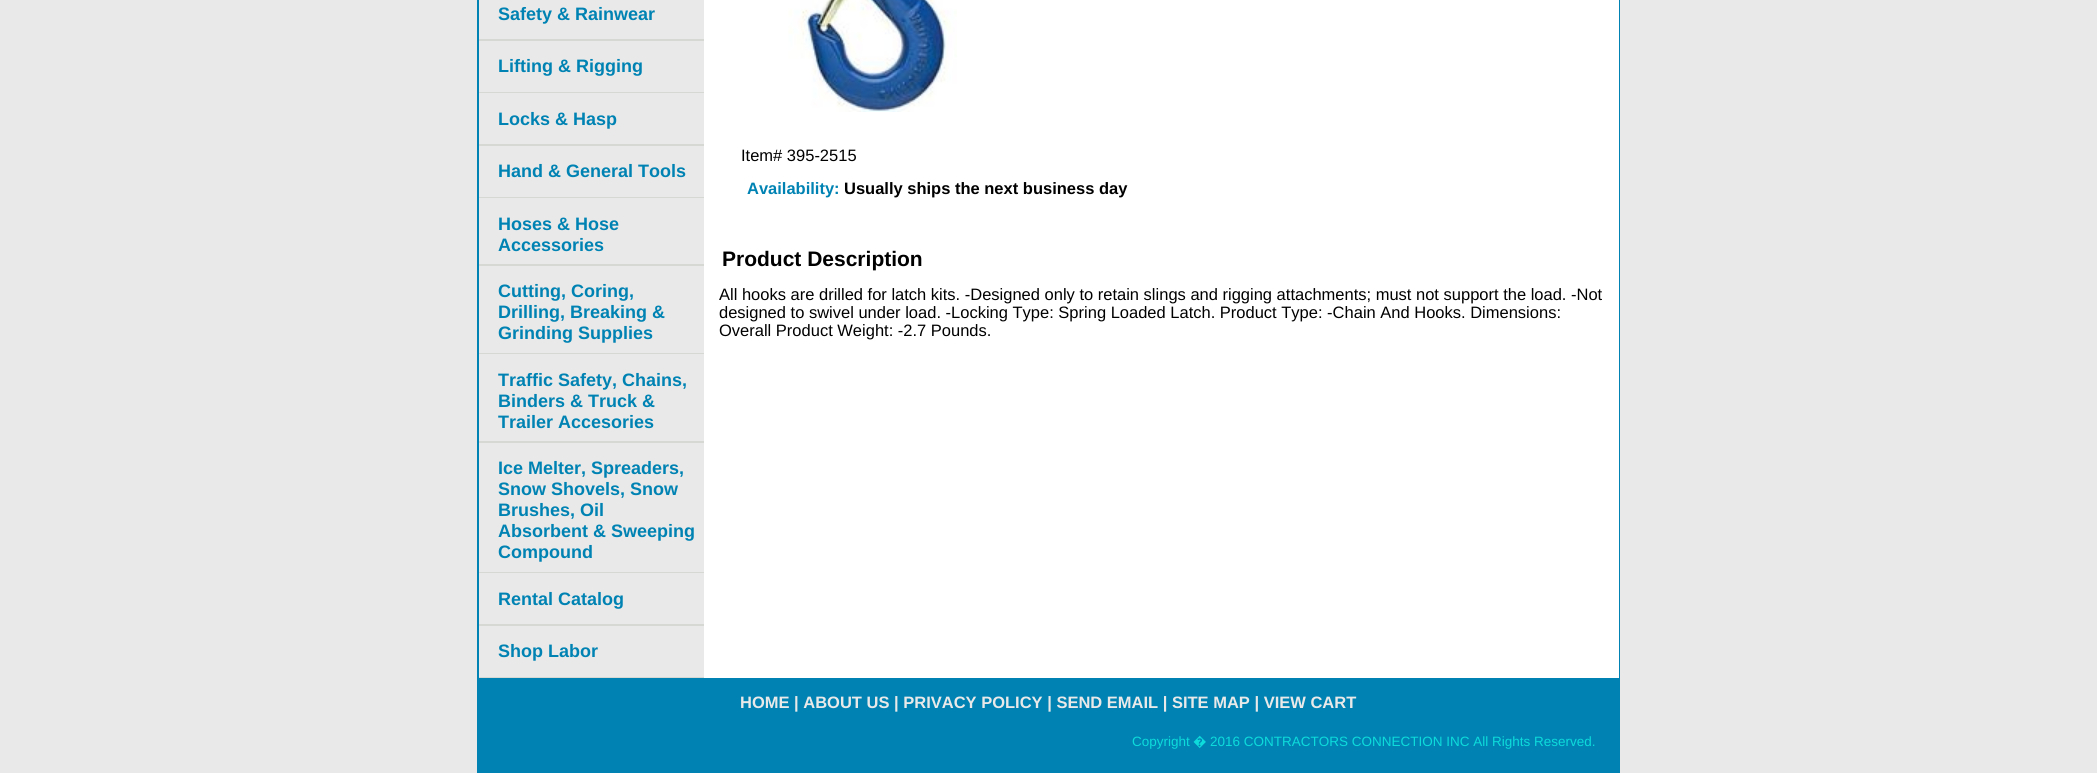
#include <cairo.h>
#include <math.h>
#include <stddef.h>


static void picture(cairo_t *cr, const char *path, double x, double y, double w, double h) {
    cairo_surface_t *image = cairo_image_surface_create_from_png(path);
    cairo_save(cr);
    cairo_set_source_surface(cr, image, x, y);
    cairo_rectangle(cr, x, y, w, h);
    cairo_fill(cr);
    cairo_restore(cr);
    cairo_surface_destroy(image);
}

int main(void) {
    cairo_surface_t *surface = cairo_image_surface_create(CAIRO_FORMAT_RGB24, 2097, 773);
    cairo_t *cr = cairo_create(surface);
    cairo_font_options_t *options = cairo_font_options_create();
    cairo_font_options_set_hint_metrics(options, CAIRO_HINT_METRICS_OFF);
    cairo_font_options_set_hint_style(options, CAIRO_HINT_STYLE_NONE);
    cairo_set_font_options(cr, options);
    cairo_set_miter_limit(cr, 4);
    cairo_set_source_rgb(cr, 0.914, 0.914, 0.914);
    cairo_paint(cr);
    cairo_rectangle(cr, 478, -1, 1141, 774);
    cairo_set_source_rgb(cr, 0, 0.514, 0.702);
    cairo_stroke(cr);
    cairo_set_source_rgb(cr, 1, 1, 1);
    cairo_rectangle(cr, 704, 0, 915, 678);
    cairo_fill(cr);
    cairo_set_source_rgb(cr, 0.839, 0.847, 0.827);
    cairo_rectangle(cr, 479, 39, 225, 2);
    cairo_fill(cr);
    cairo_select_font_face(cr, "Liberation Sans", CAIRO_FONT_SLANT_NORMAL, CAIRO_FONT_WEIGHT_BOLD);
    cairo_set_font_size(cr, 18);
    cairo_set_source_rgb(cr, 0, 0.514, 0.702);
    cairo_move_to(cr, 498, 20);
    cairo_show_text(cr, "Safety & Rainwear");
    cairo_set_source_rgb(cr, 0.839, 0.847, 0.827);
    cairo_rectangle(cr, 479, 92, 225, 1);
    cairo_fill(cr);
    cairo_set_source_rgb(cr, 0, 0.514, 0.702);
    cairo_move_to(cr, 498, 72);
    cairo_show_text(cr, "Lifting & Rigging");
    cairo_set_source_rgb(cr, 0.839, 0.847, 0.827);
    cairo_rectangle(cr, 479, 144, 225, 2);
    cairo_fill(cr);
    cairo_set_source_rgb(cr, 0, 0.514, 0.702);
    cairo_move_to(cr, 498, 125);
    cairo_show_text(cr, "Locks & Hasp");
    cairo_set_source_rgb(cr, 0.839, 0.847, 0.827);
    cairo_rectangle(cr, 479, 197, 225, 1);
    cairo_fill(cr);
    cairo_set_source_rgb(cr, 0, 0.514, 0.702);
    cairo_move_to(cr, 498, 177);
    cairo_show_text(cr, "Hand & General Tools");
    cairo_set_source_rgb(cr, 0.839, 0.847, 0.827);
    cairo_rectangle(cr, 479, 264, 225, 2);
    cairo_fill(cr);
    cairo_set_source_rgb(cr, 0, 0.514, 0.702);
    cairo_move_to(cr, 498, 230);
    cairo_show_text(cr, "Hoses & Hose");
    cairo_move_to(cr, 498, 251);
    cairo_show_text(cr, "Accessories");
    cairo_set_source_rgb(cr, 0.839, 0.847, 0.827);
    cairo_rectangle(cr, 479, 353, 225, 1);
    cairo_fill(cr);
    cairo_set_source_rgb(cr, 0, 0.514, 0.702);
    cairo_move_to(cr, 498, 297);
    cairo_show_text(cr, "Cutting, Coring,");
    cairo_move_to(cr, 498, 318);
    cairo_show_text(cr, "Drilling, Breaking &");
    cairo_move_to(cr, 498, 339);
    cairo_show_text(cr, "Grinding Supplies");
    cairo_set_source_rgb(cr, 0.839, 0.847, 0.827);
    cairo_rectangle(cr, 479, 441, 225, 2);
    cairo_fill(cr);
    cairo_set_source_rgb(cr, 0, 0.514, 0.702);
    cairo_move_to(cr, 498, 386);
    cairo_show_text(cr, "Traffic Safety, Chains,");
    cairo_move_to(cr, 498, 407);
    cairo_show_text(cr, "Binders & Truck &");
    cairo_move_to(cr, 498, 428);
    cairo_show_text(cr, "Trailer Accesories");
    cairo_set_source_rgb(cr, 0.839, 0.847, 0.827);
    cairo_rectangle(cr, 479, 572, 225, 1);
    cairo_fill(cr);
    cairo_set_source_rgb(cr, 0, 0.514, 0.702);
    cairo_move_to(cr, 498, 474);
    cairo_show_text(cr, "Ice Melter, Spreaders,");
    cairo_move_to(cr, 498, 495);
    cairo_show_text(cr, "Snow Shovels, Snow");
    cairo_move_to(cr, 498, 516);
    cairo_show_text(cr, "Brushes, Oil");
    cairo_move_to(cr, 498, 537);
    cairo_show_text(cr, "Absorbent & Sweeping");
    cairo_move_to(cr, 498, 558);
    cairo_show_text(cr, "Compound");
    cairo_set_source_rgb(cr, 0.839, 0.847, 0.827);
    cairo_rectangle(cr, 479, 624, 225, 2);
    cairo_fill(cr);
    cairo_set_source_rgb(cr, 0, 0.514, 0.702);
    cairo_move_to(cr, 498, 605);
    cairo_show_text(cr, "Rental Catalog");
    cairo_set_source_rgb(cr, 0.839, 0.847, 0.827);
    cairo_rectangle(cr, 479, 677, 225, 1);
    cairo_fill(cr);
    cairo_set_source_rgb(cr, 0, 0.514, 0.702);
    cairo_move_to(cr, 498, 657);
    cairo_show_text(cr, "Shop Labor");
    picture(cr, "img1.png", 788, 0, 169, 112);
    cairo_select_font_face(cr, "Liberation Sans", CAIRO_FONT_SLANT_NORMAL, CAIRO_FONT_WEIGHT_NORMAL);
    cairo_set_font_size(cr, 16.5);
    cairo_set_source_rgb(cr, 0, 0, 0);
    cairo_move_to(cr, 741, 161);
    cairo_show_text(cr, "Item# 395-2515");
    cairo_select_font_face(cr, "Liberation Sans", CAIRO_FONT_SLANT_NORMAL, CAIRO_FONT_WEIGHT_BOLD);
    cairo_set_source_rgb(cr, 0, 0.514, 0.702);
    cairo_move_to(cr, 747, 194);
    cairo_show_text(cr, "Availability:");
    cairo_set_source_rgb(cr, 0, 0, 0);
    cairo_move_to(cr, 844, 194);
    cairo_show_text(cr, "Usually ships the next business day");
    cairo_set_font_size(cr, 21);
    cairo_move_to(cr, 722, 266);
    cairo_show_text(cr, "Product Description");
    cairo_select_font_face(cr, "Liberation Sans", CAIRO_FONT_SLANT_NORMAL, CAIRO_FONT_WEIGHT_NORMAL);
    cairo_set_font_size(cr, 16.5);
    cairo_move_to(cr, 719, 300);
    cairo_show_text(cr, "All hooks are drilled for latch kits. -Designed only to retain slings and rigging attachments; must not support the load. -Not");
    cairo_move_to(cr, 719, 318);
    cairo_show_text(cr, "designed to swivel under load. -Locking Type: Spring Loaded Latch. Product Type: -Chain And Hooks. Dimensions:");
    cairo_move_to(cr, 719, 336);
    cairo_show_text(cr, "Overall Product Weight: -2.7 Pounds.");
    cairo_set_source_rgb(cr, 0, 0.514, 0.702);
    cairo_rectangle(cr, 479, 678, 1139, 94);
    cairo_fill(cr);
    cairo_select_font_face(cr, "Liberation Sans", CAIRO_FONT_SLANT_NORMAL, CAIRO_FONT_WEIGHT_BOLD);
    cairo_set_source_rgb(cr, 0.914, 0.914, 0.914);
    cairo_move_to(cr, 740, 708);
    cairo_show_text(cr, "HOME | ABOUT US | PRIVACY POLICY | SEND EMAIL | SITE MAP | VIEW CART");
    cairo_select_font_face(cr, "Liberation Sans", CAIRO_FONT_SLANT_NORMAL, CAIRO_FONT_WEIGHT_NORMAL);
    cairo_set_font_size(cr, 13.5);
    cairo_set_source_rgb(cr, 0.051, 0.859, 0.859);
    cairo_move_to(cr, 1132, 746);
    cairo_show_text(cr, "Copyright");
    cairo_select_font_face(cr, "Noto Sans", CAIRO_FONT_SLANT_NORMAL, CAIRO_FONT_WEIGHT_NORMAL);
    cairo_move_to(cr, 1193, 746);
    cairo_show_text(cr, "�");
    cairo_select_font_face(cr, "Liberation Sans", CAIRO_FONT_SLANT_NORMAL, CAIRO_FONT_WEIGHT_NORMAL);
    cairo_move_to(cr, 1210, 746);
    cairo_show_text(cr, "2016 CONTRACTORS CONNECTION INC All Rights Reserved.");
    cairo_surface_write_to_png(surface, "page.png");
    cairo_font_options_destroy(options);
    cairo_destroy(cr);
    cairo_surface_destroy(surface);
    return 0;
}
